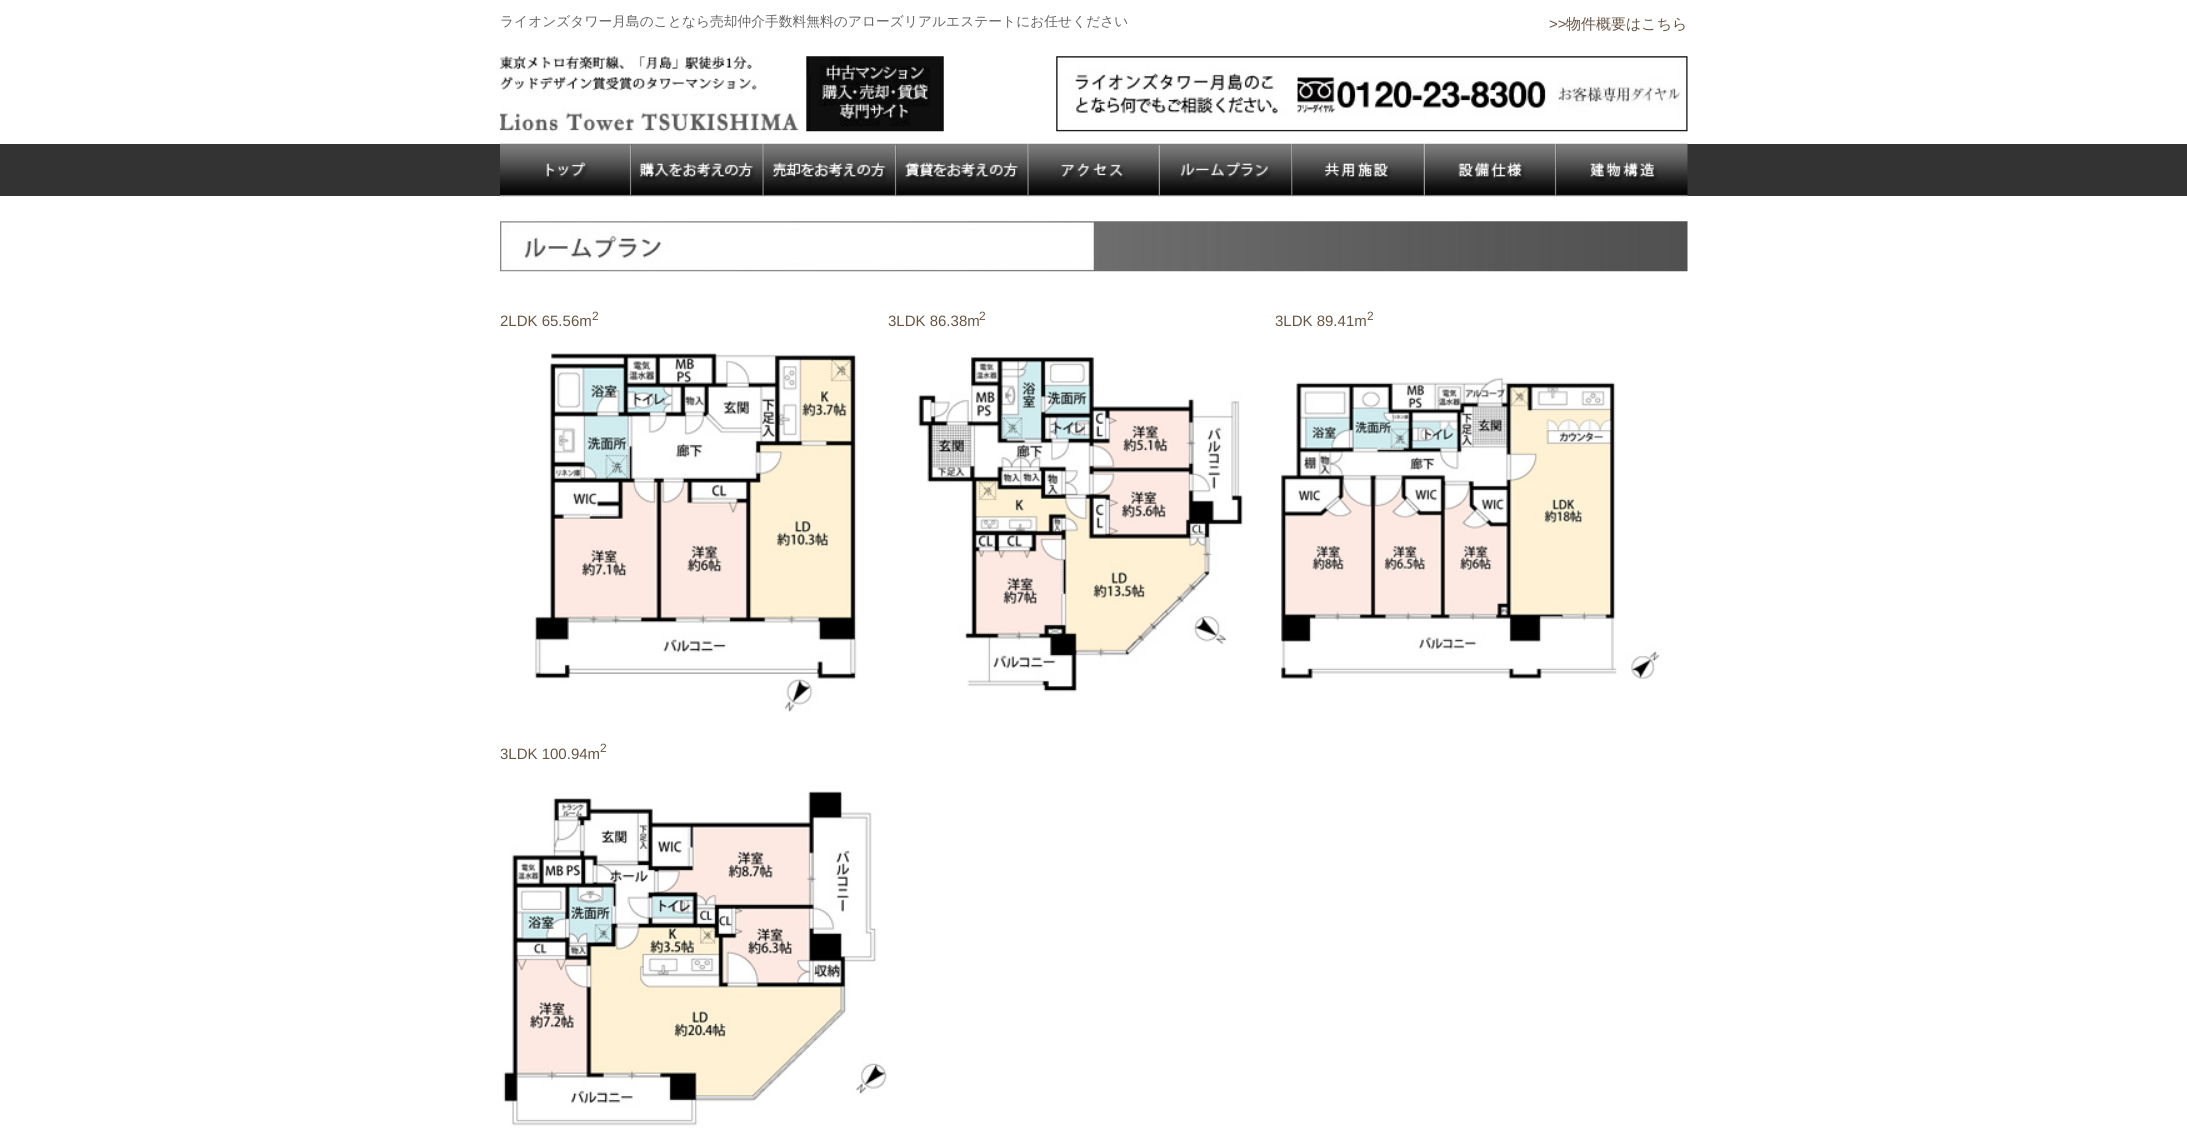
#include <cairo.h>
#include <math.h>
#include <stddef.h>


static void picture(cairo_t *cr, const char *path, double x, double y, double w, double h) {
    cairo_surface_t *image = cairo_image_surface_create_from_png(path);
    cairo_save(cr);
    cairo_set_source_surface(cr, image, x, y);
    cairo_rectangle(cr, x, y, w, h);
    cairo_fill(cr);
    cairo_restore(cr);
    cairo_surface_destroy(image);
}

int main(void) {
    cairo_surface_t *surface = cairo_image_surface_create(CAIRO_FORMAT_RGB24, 2187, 1135);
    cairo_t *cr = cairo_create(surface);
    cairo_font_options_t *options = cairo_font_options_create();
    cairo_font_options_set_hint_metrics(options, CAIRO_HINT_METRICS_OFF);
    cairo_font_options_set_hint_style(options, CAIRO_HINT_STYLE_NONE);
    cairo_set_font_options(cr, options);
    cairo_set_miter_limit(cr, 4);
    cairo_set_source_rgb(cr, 1, 1, 1);
    cairo_paint(cr);
    cairo_select_font_face(cr, "WenQuanYi Zen Hei Medium", CAIRO_FONT_SLANT_NORMAL, CAIRO_FONT_WEIGHT_NORMAL);
    cairo_set_font_size(cr, 13.75);
    cairo_set_source_rgb(cr, 0.4, 0.4, 0.4);
    cairo_move_to(cr, 500, 26);
    cairo_show_text(cr, "ライオンズタワー月島のことなら売却仲介手数料無料のアローズリアルエステートにお任せください");
    cairo_select_font_face(cr, "Liberation Sans", CAIRO_FONT_SLANT_NORMAL, CAIRO_FONT_WEIGHT_NORMAL);
    cairo_set_font_size(cr, 15);
    cairo_set_source_rgb(cr, 0.404, 0.329, 0.263);
    cairo_move_to(cr, 1549, 29);
    cairo_show_text(cr, ">>");
    cairo_select_font_face(cr, "WenQuanYi Zen Hei Medium", CAIRO_FONT_SLANT_NORMAL, CAIRO_FONT_WEIGHT_NORMAL);
    cairo_move_to(cr, 1566, 29);
    cairo_show_text(cr, "物件概要はこちら");
    picture(cr, "img1.png", 500, 56, 444, 76);
    picture(cr, "img2.png", 1056, 56, 632, 76);
    cairo_set_source_rgb(cr, 0.2, 0.2, 0.2);
    cairo_rectangle(cr, 0, 144, 2187, 52);
    cairo_fill(cr);
    picture(cr, "img3.png", 500, 143, 132, 54);
    picture(cr, "img4.png", 631, 143, 133, 54);
    picture(cr, "img5.png", 763, 143, 134, 54);
    picture(cr, "img6.png", 896, 143, 133, 54);
    picture(cr, "img7.png", 1028, 143, 132, 54);
    picture(cr, "img8.png", 1160, 143, 133, 54);
    picture(cr, "img9.png", 1292, 143, 133, 54);
    picture(cr, "img10.png", 1425, 143, 132, 54);
    picture(cr, "img11.png", 1556, 143, 132, 54);
    picture(cr, "img12.png", 500, 221, 1188, 51);
    cairo_select_font_face(cr, "Liberation Sans", CAIRO_FONT_SLANT_NORMAL, CAIRO_FONT_WEIGHT_NORMAL);
    cairo_set_source_rgb(cr, 0.404, 0.329, 0.263);
    cairo_move_to(cr, 500, 326);
    cairo_show_text(cr, "2LDK 65.56m");
    cairo_set_font_size(cr, 12);
    cairo_move_to(cr, 592, 320);
    cairo_show_text(cr, "2");
    picture(cr, "img13.png", 534, 353, 323, 359);
    cairo_set_font_size(cr, 15);
    cairo_move_to(cr, 888, 326);
    cairo_show_text(cr, "3LDK 86.38m");
    cairo_set_font_size(cr, 12);
    cairo_move_to(cr, 979, 320);
    cairo_show_text(cr, "2");
    picture(cr, "img14.png", 918, 357, 325, 335);
    cairo_set_font_size(cr, 15);
    cairo_move_to(cr, 1275, 326);
    cairo_show_text(cr, "3LDK 89.41m");
    cairo_set_font_size(cr, 12);
    cairo_move_to(cr, 1367, 320);
    cairo_show_text(cr, "2");
    picture(cr, "img15.png", 1281, 377, 379, 302);
    cairo_set_font_size(cr, 15);
    cairo_move_to(cr, 500, 759);
    cairo_show_text(cr, "3LDK 100.94m");
    cairo_set_font_size(cr, 12);
    cairo_move_to(cr, 600, 752);
    cairo_show_text(cr, "2");
    picture(cr, "img16.png", 503, 791, 384, 335);
    cairo_surface_write_to_png(surface, "page.png");
    cairo_font_options_destroy(options);
    cairo_destroy(cr);
    cairo_surface_destroy(surface);
    return 0;
}
